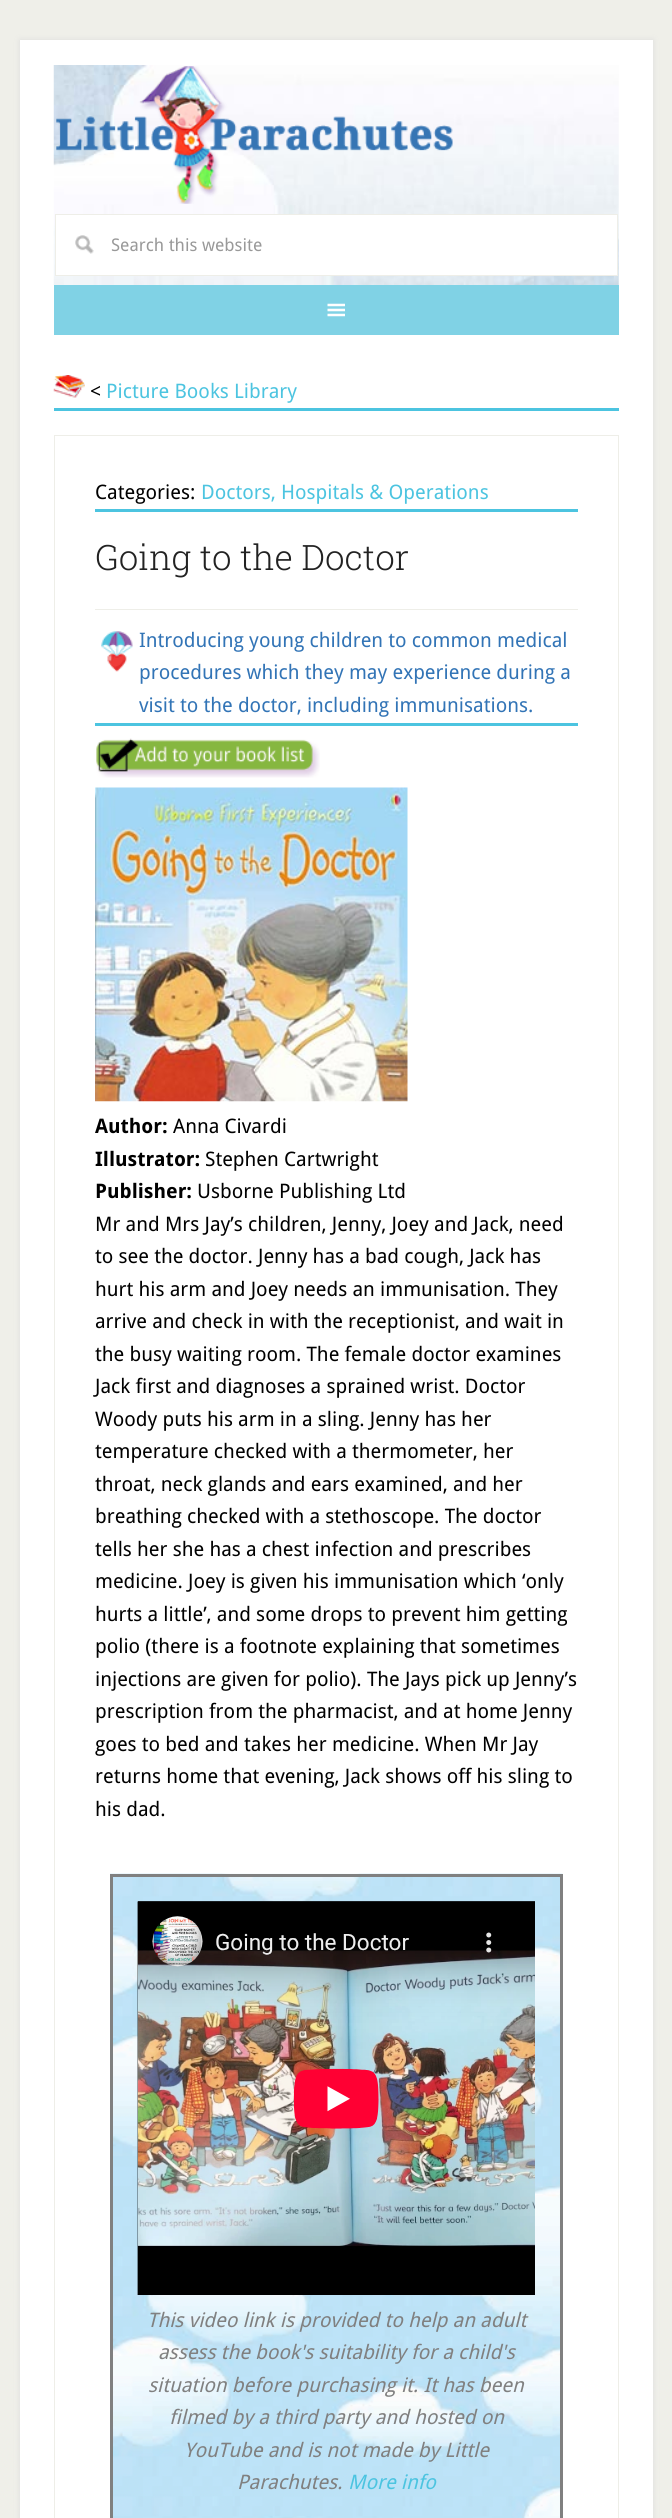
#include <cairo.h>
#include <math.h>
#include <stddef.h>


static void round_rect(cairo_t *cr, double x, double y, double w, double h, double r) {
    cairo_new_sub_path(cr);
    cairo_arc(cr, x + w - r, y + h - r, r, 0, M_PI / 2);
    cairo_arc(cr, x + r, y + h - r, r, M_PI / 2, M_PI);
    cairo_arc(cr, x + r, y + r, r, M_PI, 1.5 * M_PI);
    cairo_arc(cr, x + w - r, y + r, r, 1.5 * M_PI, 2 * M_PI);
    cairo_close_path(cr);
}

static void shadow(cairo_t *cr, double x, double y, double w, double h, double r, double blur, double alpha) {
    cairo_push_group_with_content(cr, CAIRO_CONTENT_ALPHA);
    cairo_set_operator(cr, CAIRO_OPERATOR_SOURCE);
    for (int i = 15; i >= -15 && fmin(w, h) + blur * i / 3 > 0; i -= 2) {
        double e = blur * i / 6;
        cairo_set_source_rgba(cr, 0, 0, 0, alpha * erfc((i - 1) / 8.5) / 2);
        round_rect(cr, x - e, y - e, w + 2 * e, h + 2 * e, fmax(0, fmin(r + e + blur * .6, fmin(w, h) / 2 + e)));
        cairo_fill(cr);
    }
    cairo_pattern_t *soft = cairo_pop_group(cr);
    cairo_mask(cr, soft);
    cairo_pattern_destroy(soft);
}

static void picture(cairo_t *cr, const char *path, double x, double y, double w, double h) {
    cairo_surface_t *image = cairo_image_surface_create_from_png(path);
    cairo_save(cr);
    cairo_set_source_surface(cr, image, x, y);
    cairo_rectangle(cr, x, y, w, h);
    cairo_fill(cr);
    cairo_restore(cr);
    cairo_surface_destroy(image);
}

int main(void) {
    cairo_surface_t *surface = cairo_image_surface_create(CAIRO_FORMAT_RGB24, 672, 2518);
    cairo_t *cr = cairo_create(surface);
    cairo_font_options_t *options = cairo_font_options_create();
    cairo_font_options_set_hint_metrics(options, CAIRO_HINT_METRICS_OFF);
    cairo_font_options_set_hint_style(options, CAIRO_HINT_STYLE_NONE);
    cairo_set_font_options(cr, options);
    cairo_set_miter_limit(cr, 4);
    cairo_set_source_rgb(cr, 0.937, 0.937, 0.914);
    cairo_paint(cr);
    cairo_set_source_rgb(cr, 0.867, 0.867, 0.867);
    shadow(cr, 20, 40, 633, 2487, 0, 3, 1);
    cairo_set_source_rgb(cr, 1, 1, 1);
    cairo_rectangle(cr, 20, 40, 633, 2478);
    cairo_fill(cr);
    picture(cr, "img1.png", 53, 65, 566, 220);
    picture(cr, "img2.png", 56, 66, 397, 138);
    cairo_rectangle(cr, 56, 215, 561, 60);
    cairo_fill(cr);
    picture(cr, "img3.png", 75, 235, 19, 19);
    cairo_rectangle(cr, 55.5, 214.5, 562, 61);
    cairo_set_source_rgb(cr, 0.933, 0.933, 0.91);
    cairo_set_line_width(cr, 1);
    cairo_stroke(cr);
    cairo_select_font_face(cr, "Droid Sans", CAIRO_FONT_SLANT_NORMAL, CAIRO_FONT_WEIGHT_NORMAL);
    cairo_set_font_size(cr, 17.5);
    cairo_set_source_rgb(cr, 0.6, 0.6, 0.6);
    cairo_move_to(cr, 111, 251);
    cairo_show_text(cr, "Search this website");
    cairo_set_source_rgb(cr, 0.502, 0.824, 0.898);
    cairo_rectangle(cr, 54, 285, 565, 50);
    cairo_fill(cr);
    picture(cr, "img4.png", 327, 303, 18, 14);
    cairo_set_source_rgb(cr, 0.298, 0.769, 0.878);
    cairo_rectangle(cr, 54, 408, 565, 3);
    cairo_fill(cr);
    picture(cr, "img5.png", 53, 375, 32, 23);
    cairo_set_font_size(cr, 20);
    cairo_set_source_rgb(cr, 0, 0, 0);
    cairo_move_to(cr, 90, 398);
    cairo_show_text(cr, "<");
    cairo_set_source_rgb(cr, 0.298, 0.769, 0.878);
    cairo_move_to(cr, 106, 398);
    cairo_show_text(cr, "Picture Books Library");
    cairo_rectangle(cr, 54.5, 435.5, 564, 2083);
    cairo_set_source_rgb(cr, 0.933, 0.933, 0.91);
    cairo_stroke(cr);
    cairo_rectangle(cr, 95, 609, 483, 1);
    cairo_fill(cr);
    cairo_set_source_rgb(cr, 0.298, 0.769, 0.878);
    cairo_rectangle(cr, 95, 509, 483, 3);
    cairo_fill(cr);
    cairo_set_source_rgb(cr, 0, 0, 0);
    cairo_move_to(cr, 95, 499);
    cairo_show_text(cr, "Categories:");
    cairo_set_source_rgb(cr, 0.298, 0.769, 0.878);
    cairo_move_to(cr, 201, 499);
    cairo_show_text(cr, "Doctors, Hospitals & Operations");
    cairo_select_font_face(cr, "Roboto Slab Light", CAIRO_FONT_SLANT_NORMAL, CAIRO_FONT_WEIGHT_NORMAL);
    cairo_set_font_size(cr, 35);
    cairo_set_source_rgb(cr, 0.133, 0.133, 0.133);
    cairo_move_to(cr, 95, 570);
    cairo_show_text(cr, "Going to the Doctor");
    cairo_set_source_rgb(cr, 0.298, 0.769, 0.878);
    cairo_rectangle(cr, 95, 723, 483, 3);
    cairo_fill(cr);
    picture(cr, "img6.png", 101, 631, 32, 41);
    cairo_select_font_face(cr, "Droid Sans", CAIRO_FONT_SLANT_NORMAL, CAIRO_FONT_WEIGHT_NORMAL);
    cairo_set_font_size(cr, 20);
    cairo_set_source_rgb(cr, 0.196, 0.455, 0.714);
    cairo_move_to(cr, 139, 647);
    cairo_show_text(cr, "Introducing young children to common medical");
    cairo_move_to(cr, 139, 679);
    cairo_show_text(cr, "procedures which they may experience during a");
    cairo_move_to(cr, 139, 712);
    cairo_show_text(cr, "visit to the doctor, including immunisations.");
    picture(cr, "img7.png", 96, 738, 224, 40);
    picture(cr, "img8.png", 95, 787, 313, 315);
    cairo_select_font_face(cr, "Droid Sans", CAIRO_FONT_SLANT_NORMAL, CAIRO_FONT_WEIGHT_BOLD);
    cairo_set_source_rgb(cr, 0, 0, 0);
    cairo_move_to(cr, 95, 1133);
    cairo_show_text(cr, "Author:");
    cairo_select_font_face(cr, "Droid Sans", CAIRO_FONT_SLANT_NORMAL, CAIRO_FONT_WEIGHT_NORMAL);
    cairo_move_to(cr, 173, 1133);
    cairo_show_text(cr, "Anna Civardi");
    cairo_select_font_face(cr, "Droid Sans", CAIRO_FONT_SLANT_NORMAL, CAIRO_FONT_WEIGHT_BOLD);
    cairo_move_to(cr, 95, 1166);
    cairo_show_text(cr, "Illustrator:");
    cairo_select_font_face(cr, "Droid Sans", CAIRO_FONT_SLANT_NORMAL, CAIRO_FONT_WEIGHT_NORMAL);
    cairo_move_to(cr, 205, 1166);
    cairo_show_text(cr, "Stephen Cartwright");
    cairo_select_font_face(cr, "Droid Sans", CAIRO_FONT_SLANT_NORMAL, CAIRO_FONT_WEIGHT_BOLD);
    cairo_move_to(cr, 95, 1198);
    cairo_show_text(cr, "Publisher:");
    cairo_select_font_face(cr, "Droid Sans", CAIRO_FONT_SLANT_NORMAL, CAIRO_FONT_WEIGHT_NORMAL);
    cairo_move_to(cr, 197, 1198);
    cairo_show_text(cr, "Usborne Publishing Ltd");
    cairo_move_to(cr, 95, 1231);
    cairo_show_text(cr, "Mr and Mrs Jay’s children, Jenny, Joey and Jack, need");
    cairo_move_to(cr, 95, 1263);
    cairo_show_text(cr, "to see the doctor. Jenny has a bad cough, Jack has");
    cairo_move_to(cr, 95, 1296);
    cairo_show_text(cr, "hurt his arm and Joey needs an immunisation. They");
    cairo_move_to(cr, 95, 1328);
    cairo_show_text(cr, "arrive and check in with the receptionist, and wait in");
    cairo_move_to(cr, 95, 1361);
    cairo_show_text(cr, "the busy waiting room. The female doctor examines");
    cairo_move_to(cr, 95, 1393);
    cairo_show_text(cr, "Jack first and diagnoses a sprained wrist. Doctor");
    cairo_move_to(cr, 95, 1426);
    cairo_show_text(cr, "Woody puts his arm in a sling. Jenny has her");
    cairo_move_to(cr, 95, 1458);
    cairo_show_text(cr, "temperature checked with a thermometer, her");
    cairo_move_to(cr, 95, 1491);
    cairo_show_text(cr, "throat, neck glands and ears examined, and her");
    cairo_move_to(cr, 95, 1523);
    cairo_show_text(cr, "breathing checked with a stethoscope. The doctor");
    cairo_move_to(cr, 95, 1556);
    cairo_show_text(cr, "tells her she has a chest infection and prescribes");
    cairo_move_to(cr, 95, 1588);
    cairo_show_text(cr, "medicine. Joey is given his immunisation which ‘only");
    cairo_move_to(cr, 95, 1621);
    cairo_show_text(cr, "hurts a little’, and some drops to prevent him getting");
    cairo_move_to(cr, 95, 1653);
    cairo_show_text(cr, "polio (there is a footnote explaining that sometimes");
    cairo_move_to(cr, 95, 1686);
    cairo_show_text(cr, "injections are given for polio). The Jays pick up Jenny’s");
    cairo_move_to(cr, 95, 1718);
    cairo_show_text(cr, "prescription from the pharmacist, and at home Jenny");
    cairo_move_to(cr, 95, 1751);
    cairo_show_text(cr, "goes to bed and takes her medicine. When Mr Jay");
    cairo_move_to(cr, 95, 1783);
    cairo_show_text(cr, "returns home that evening, Jack shows off his sling to");
    cairo_move_to(cr, 95, 1816);
    cairo_show_text(cr, "his dad.");
    picture(cr, "img9.png", 110, 1873, 453, 645);
    cairo_rectangle(cr, 111.5, 1875.5, 450, 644);
    cairo_set_source_rgb(cr, 0.502, 0.502, 0.502);
    cairo_set_line_width(cr, 3);
    cairo_stroke(cr);
    picture(cr, "img10.png", 137, 1901, 398, 394);
    cairo_select_font_face(cr, "Droid Sans", CAIRO_FONT_SLANT_ITALIC, CAIRO_FONT_WEIGHT_NORMAL);
    cairo_move_to(cr, 147, 2327);
    cairo_show_text(cr, "This video link is provided to help an adult");
    cairo_move_to(cr, 158, 2359);
    cairo_show_text(cr, "assess the book's suitability for a child's");
    cairo_move_to(cr, 148, 2392);
    cairo_show_text(cr, "situation before purchasing it. It has been");
    cairo_move_to(cr, 169, 2424);
    cairo_show_text(cr, "filmed by a third party and hosted on");
    cairo_move_to(cr, 184, 2457);
    cairo_show_text(cr, "YouTube and is not made by Little");
    cairo_move_to(cr, 237, 2489);
    cairo_show_text(cr, "Parachutes.");
    cairo_set_source_rgb(cr, 0.298, 0.769, 0.878);
    cairo_move_to(cr, 348, 2489);
    cairo_show_text(cr, "More info");
    cairo_surface_write_to_png(surface, "page.png");
    cairo_font_options_destroy(options);
    cairo_destroy(cr);
    cairo_surface_destroy(surface);
    return 0;
}
